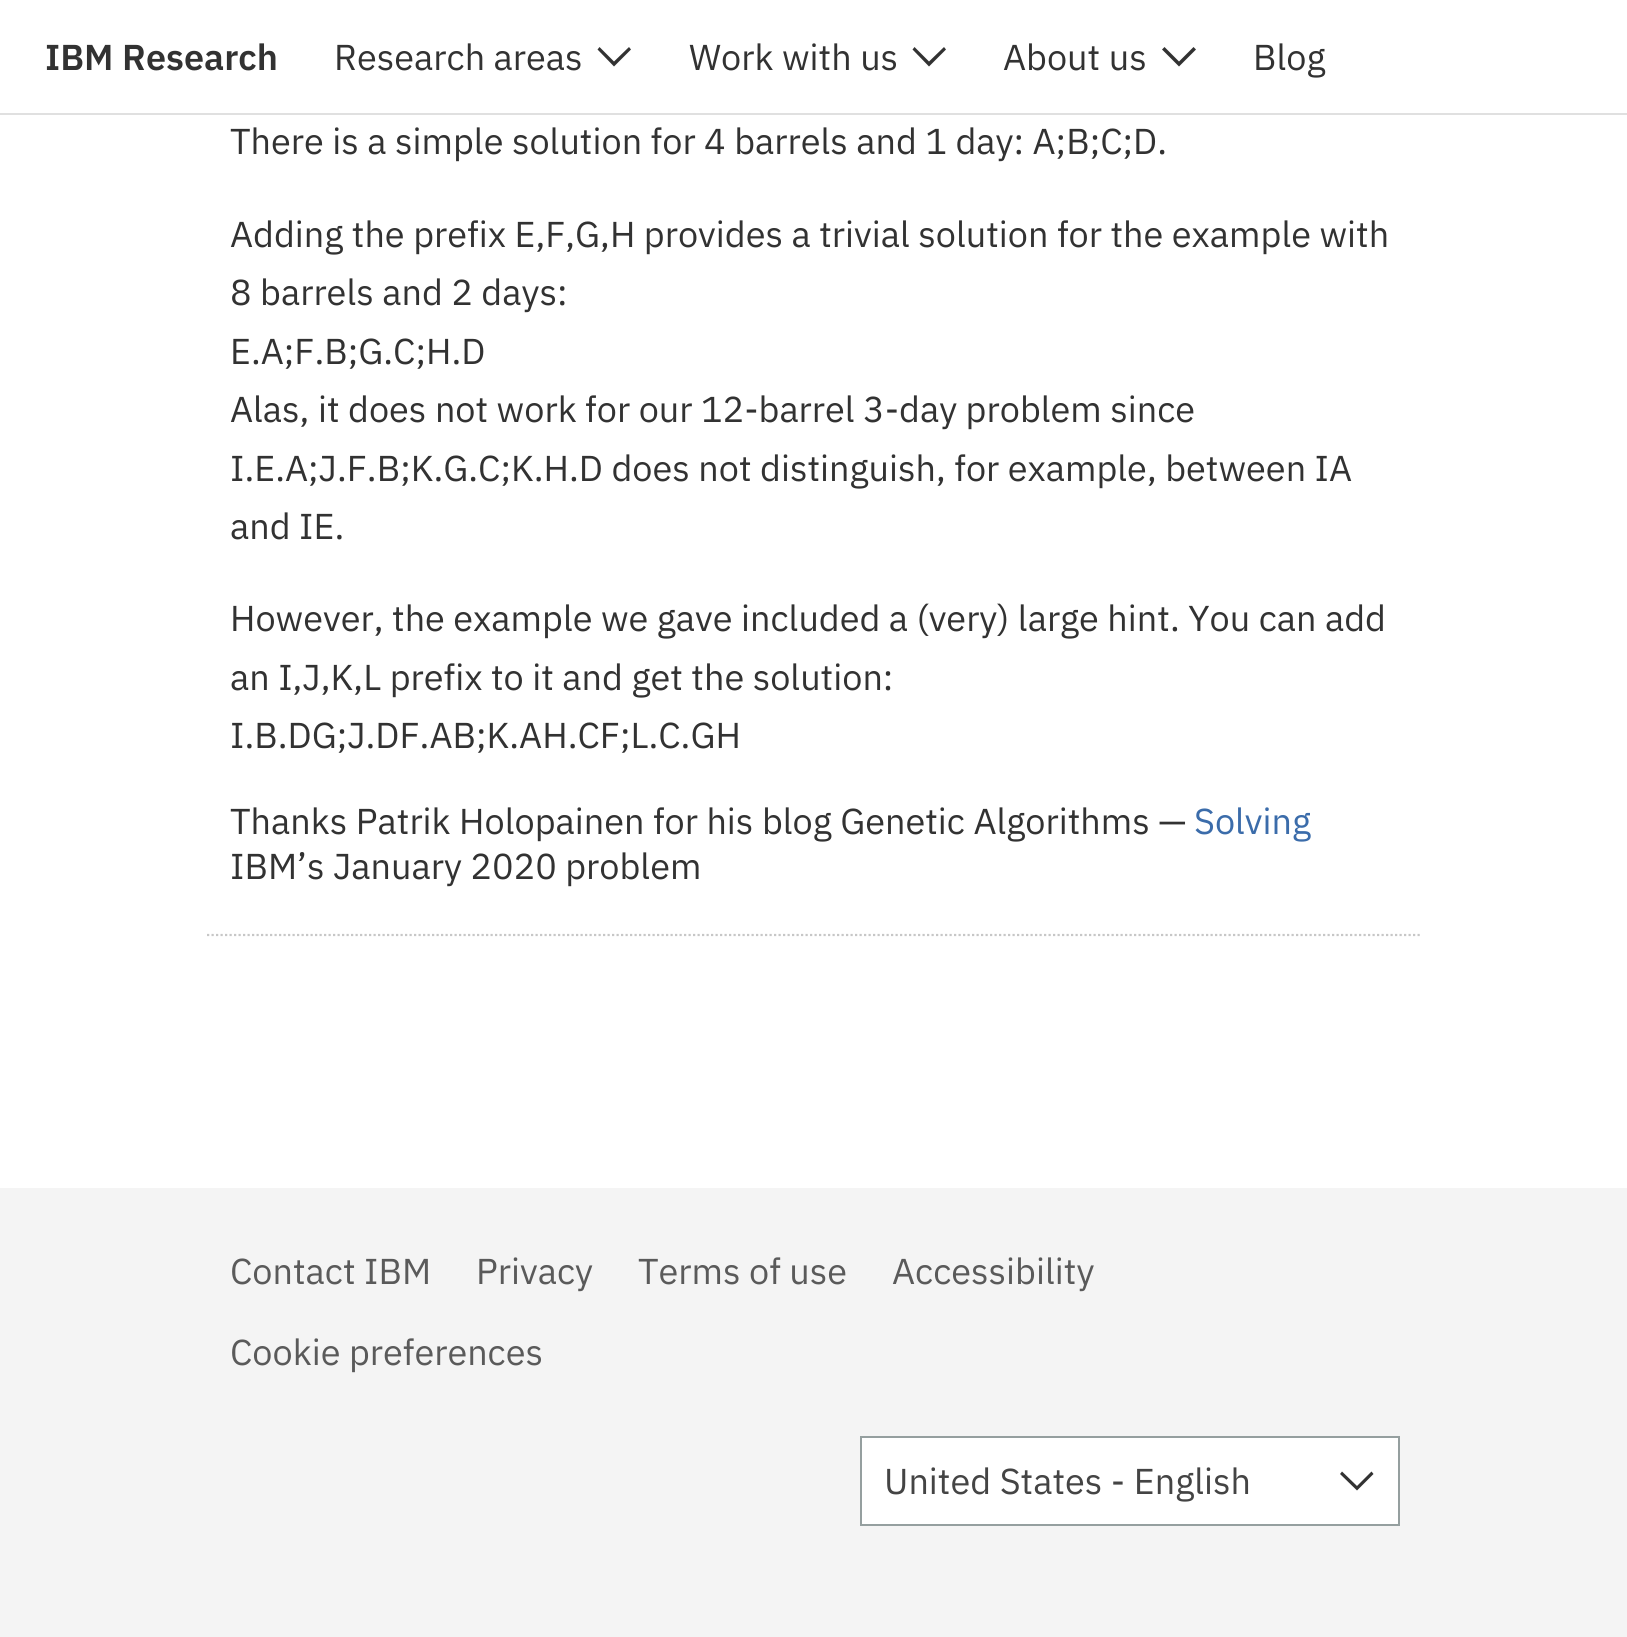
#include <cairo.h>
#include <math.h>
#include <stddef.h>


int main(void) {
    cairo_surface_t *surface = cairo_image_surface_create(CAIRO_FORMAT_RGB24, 1627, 1637);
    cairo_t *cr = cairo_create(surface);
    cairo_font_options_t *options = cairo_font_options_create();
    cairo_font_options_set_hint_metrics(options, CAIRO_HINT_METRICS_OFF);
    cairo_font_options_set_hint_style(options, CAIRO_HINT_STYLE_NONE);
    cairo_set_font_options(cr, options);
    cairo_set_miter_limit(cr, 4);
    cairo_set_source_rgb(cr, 1, 1, 1);
    cairo_paint(cr);
    cairo_set_source_rgb(cr, 0.878, 0.878, 0.878);
    cairo_rectangle(cr, 0, 113, 1627, 2);
    cairo_fill(cr);
    cairo_select_font_face(cr, "IBM Plex Sans SemiBold", CAIRO_FONT_SLANT_NORMAL, CAIRO_FONT_WEIGHT_NORMAL);
    cairo_set_font_size(cr, 36);
    cairo_set_source_rgb(cr, 0.196, 0.196, 0.196);
    cairo_move_to(cr, 45, 70);
    cairo_show_text(cr, "IBM Research");
    cairo_select_font_face(cr, "IBM Plex Sans", CAIRO_FONT_SLANT_NORMAL, CAIRO_FONT_WEIGHT_NORMAL);
    cairo_move_to(cr, 334, 70);
    cairo_show_text(cr, "Research areas");
    cairo_new_path(cr);
    cairo_move_to(cr, 614, 66.5);
    cairo_line_to(cr, 597.5, 49.5);
    cairo_line_to(cr, 599.5, 47);
    cairo_line_to(cr, 614, 61.5);
    cairo_line_to(cr, 629, 47);
    cairo_line_to(cr, 631, 49.5);
    cairo_close_path(cr);
    cairo_fill(cr);
    cairo_move_to(cr, 689, 70);
    cairo_show_text(cr, "Work with us");
    cairo_new_path(cr);
    cairo_move_to(cr, 929, 66.5);
    cairo_line_to(cr, 912.5, 49.5);
    cairo_line_to(cr, 914.5, 47);
    cairo_line_to(cr, 929, 61.5);
    cairo_line_to(cr, 944, 47);
    cairo_line_to(cr, 946, 49.5);
    cairo_close_path(cr);
    cairo_fill(cr);
    cairo_move_to(cr, 1003, 70);
    cairo_show_text(cr, "About us");
    cairo_new_path(cr);
    cairo_move_to(cr, 1179, 66.5);
    cairo_line_to(cr, 1162, 49.5);
    cairo_line_to(cr, 1164.5, 47);
    cairo_line_to(cr, 1179, 61.5);
    cairo_line_to(cr, 1193.5, 47);
    cairo_line_to(cr, 1196, 49.5);
    cairo_close_path(cr);
    cairo_fill(cr);
    cairo_move_to(cr, 1253, 70);
    cairo_show_text(cr, "Blog");
    cairo_move_to(cr, 230, 154);
    cairo_show_text(cr, "There is a simple solution for 4 barrels and 1 day: A;B;C;D.");
    cairo_move_to(cr, 230, 247);
    cairo_show_text(cr, "Adding the prefix E,F,G,H provides a trivial solution for the example with");
    cairo_move_to(cr, 230, 305);
    cairo_show_text(cr, "8 barrels and 2 days:");
    cairo_move_to(cr, 230, 364);
    cairo_show_text(cr, "E.A;F.B;G.C;H.D");
    cairo_move_to(cr, 230, 422);
    cairo_show_text(cr, "Alas, it does not work for our 12-barrel 3-day problem since");
    cairo_move_to(cr, 230, 481);
    cairo_show_text(cr, "I.E.A;J.F.B;K.G.C;K.H.D does not distinguish, for example, between IA");
    cairo_move_to(cr, 230, 539);
    cairo_show_text(cr, "and IE.");
    cairo_move_to(cr, 230, 631);
    cairo_show_text(cr, "However, the example we gave included a (very) large hint. You can add");
    cairo_move_to(cr, 230, 690);
    cairo_show_text(cr, "an I,J,K,L prefix to it and get the solution:");
    cairo_move_to(cr, 230, 748);
    cairo_show_text(cr, "I.B.DG;J.DF.AB;K.AH.CF;L.C.GH");
    cairo_move_to(cr, 230, 834);
    cairo_show_text(cr, "Thanks Patrik Holopainen for his blog Genetic Algorithms —");
    cairo_set_source_rgb(cr, 0.231, 0.424, 0.667);
    cairo_move_to(cr, 1194, 834);
    cairo_show_text(cr, "Solving");
    cairo_set_source_rgb(cr, 0.196, 0.196, 0.196);
    cairo_move_to(cr, 230, 879);
    cairo_show_text(cr, "IBM’s January 2020 problem");
    cairo_new_path(cr);
    cairo_move_to(cr, 207, 935);
    cairo_line_to(cr, 1422, 935);
    cairo_set_source_rgb(cr, 0.78, 0.78, 0.78);
    cairo_set_line_width(cr, 2.2);
    cairo_set_dash(cr, (double[]){2.25, 2.25}, 2, 0);
    cairo_stroke(cr);
    cairo_set_source_rgb(cr, 0.957, 0.957, 0.957);
    cairo_rectangle(cr, 0, 1188, 1627, 449);
    cairo_fill(cr);
    cairo_set_source_rgb(cr, 0.353, 0.353, 0.353);
    cairo_move_to(cr, 230, 1284);
    cairo_show_text(cr, "Contact IBM");
    cairo_move_to(cr, 476, 1284);
    cairo_show_text(cr, "Privacy");
    cairo_move_to(cr, 638, 1284);
    cairo_show_text(cr, "Terms of use");
    cairo_move_to(cr, 892, 1284);
    cairo_show_text(cr, "Accessibility");
    cairo_move_to(cr, 230, 1365);
    cairo_show_text(cr, "Cookie preferences");
    cairo_set_source_rgb(cr, 1, 1, 1);
    cairo_rectangle(cr, 861, 1437, 538, 88);
    cairo_fill_preserve(cr);
    cairo_set_source_rgb(cr, 0.584, 0.624, 0.624);
    cairo_set_line_width(cr, 2);
    cairo_set_dash(cr, NULL, 0, 0);
    cairo_stroke(cr);
    cairo_set_source_rgb(cr, 0.267, 0.267, 0.267);
    cairo_move_to(cr, 884, 1494);
    cairo_show_text(cr, "United States - English");
    cairo_set_source_rgb(cr, 0.196, 0.196, 0.196);
    cairo_new_path(cr);
    cairo_move_to(cr, 1357, 1490.5);
    cairo_line_to(cr, 1340, 1474);
    cairo_line_to(cr, 1342, 1471.5);
    cairo_line_to(cr, 1357, 1486);
    cairo_line_to(cr, 1371.5, 1471.5);
    cairo_line_to(cr, 1373.5, 1474);
    cairo_close_path(cr);
    cairo_fill(cr);
    cairo_surface_write_to_png(surface, "page.png");
    cairo_font_options_destroy(options);
    cairo_destroy(cr);
    cairo_surface_destroy(surface);
    return 0;
}
